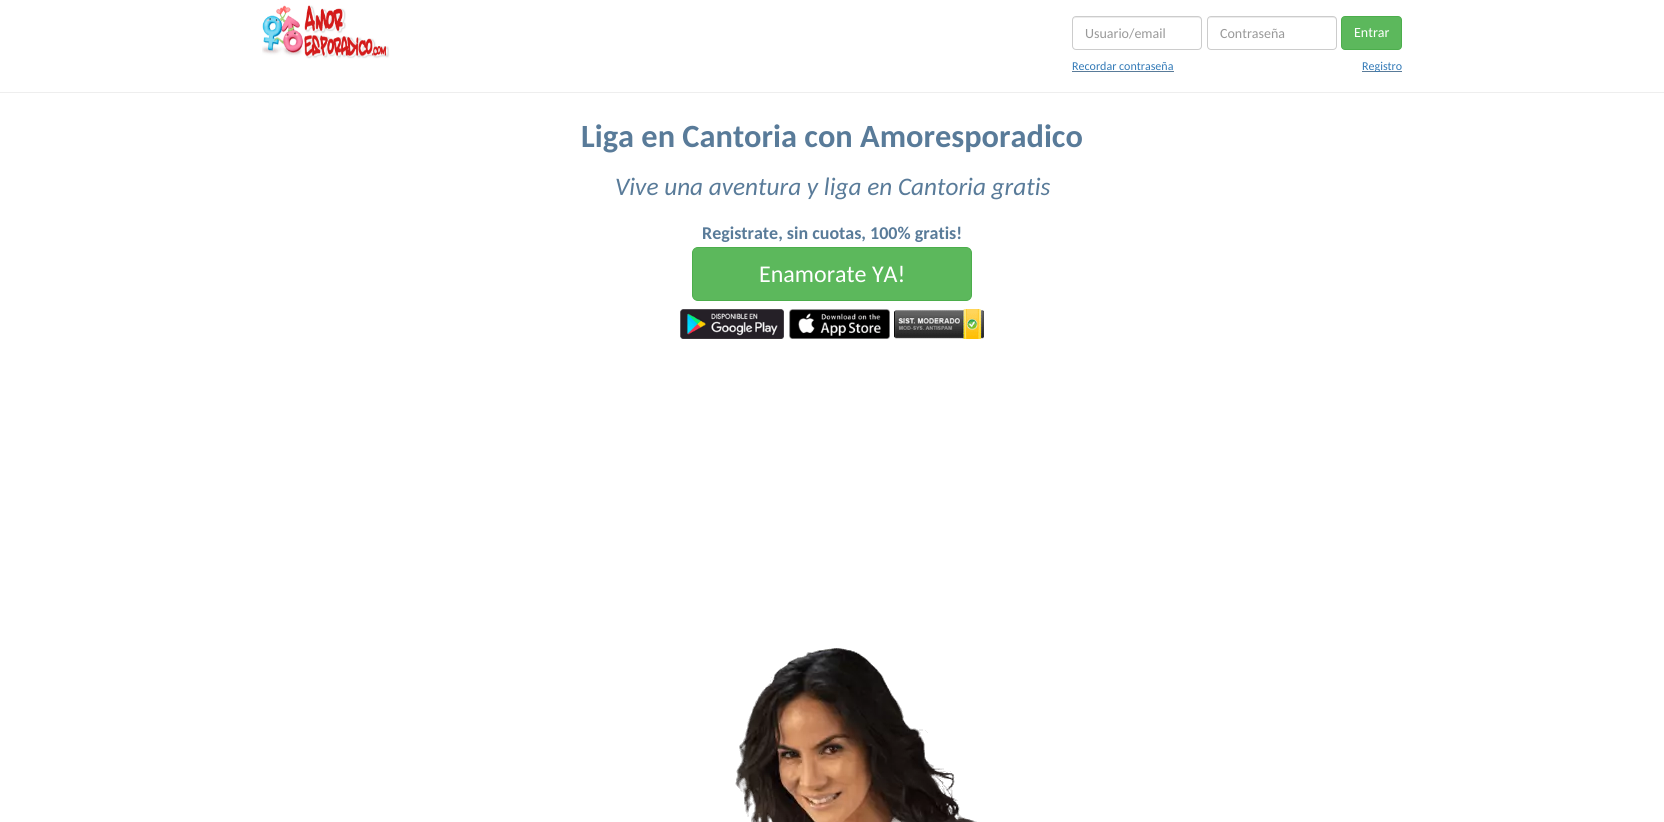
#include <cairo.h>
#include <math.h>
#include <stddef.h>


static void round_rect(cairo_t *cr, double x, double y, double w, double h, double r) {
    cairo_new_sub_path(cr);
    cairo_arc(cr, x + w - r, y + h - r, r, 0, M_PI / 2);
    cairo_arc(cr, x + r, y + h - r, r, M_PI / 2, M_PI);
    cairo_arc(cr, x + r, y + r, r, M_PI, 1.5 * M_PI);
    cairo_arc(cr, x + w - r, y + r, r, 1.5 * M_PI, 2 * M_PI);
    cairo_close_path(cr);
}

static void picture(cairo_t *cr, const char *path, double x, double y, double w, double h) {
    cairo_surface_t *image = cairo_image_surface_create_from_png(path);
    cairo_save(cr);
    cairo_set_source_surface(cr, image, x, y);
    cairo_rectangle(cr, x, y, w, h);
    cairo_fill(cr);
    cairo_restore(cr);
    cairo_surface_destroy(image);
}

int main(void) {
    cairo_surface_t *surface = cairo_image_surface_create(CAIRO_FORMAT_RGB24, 1664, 822);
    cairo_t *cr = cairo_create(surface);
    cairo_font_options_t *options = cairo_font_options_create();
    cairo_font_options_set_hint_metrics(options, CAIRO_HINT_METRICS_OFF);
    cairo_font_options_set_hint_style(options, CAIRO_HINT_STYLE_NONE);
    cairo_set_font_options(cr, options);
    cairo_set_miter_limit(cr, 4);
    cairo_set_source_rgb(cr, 1, 1, 1);
    cairo_paint(cr);
    cairo_set_source_rgb(cr, 0.933, 0.933, 0.933);
    cairo_rectangle(cr, 0, 92, 1664, 1);
    cairo_fill(cr);
    picture(cr, "img1.png", 262, 5, 128, 54);
    cairo_set_source_rgb(cr, 0.925, 0.925, 0.925);
    cairo_new_path(cr);
    cairo_move_to(cr, 1076, 18);
    cairo_line_to(cr, 1198, 18);
    cairo_curve_to(cr, 1200, 18, 1201, 19, 1201, 21);
    cairo_curve_to(cr, 1201, 19, 1201, 17, 1199, 17);
    cairo_line_to(cr, 1076, 17);
    cairo_curve_to(cr, 1074, 17, 1073, 19, 1073, 21);
    cairo_curve_to(cr, 1073, 19, 1074, 18, 1076, 18);
    cairo_close_path(cr);
    cairo_fill(cr);
    round_rect(cr, 1072.5, 16.5, 129, 33, 3.5);
    cairo_set_source_rgb(cr, 0.8, 0.8, 0.8);
    cairo_set_line_width(cr, 1);
    cairo_stroke(cr);
    cairo_select_font_face(cr, "Carlito", CAIRO_FONT_SLANT_NORMAL, CAIRO_FONT_WEIGHT_NORMAL);
    cairo_set_font_size(cr, 14);
    cairo_set_source_rgb(cr, 0.6, 0.6, 0.6);
    cairo_move_to(cr, 1085, 38);
    cairo_show_text(cr, "Usuario/email");
    cairo_set_source_rgb(cr, 0.925, 0.925, 0.925);
    cairo_new_path(cr);
    cairo_move_to(cr, 1211, 18);
    cairo_line_to(cr, 1333, 18);
    cairo_curve_to(cr, 1335, 18, 1336, 19, 1336, 21);
    cairo_curve_to(cr, 1336, 19, 1336, 17, 1334, 17);
    cairo_line_to(cr, 1211, 17);
    cairo_curve_to(cr, 1209, 17, 1208, 19, 1208, 21);
    cairo_curve_to(cr, 1208, 19, 1209, 18, 1211, 18);
    cairo_close_path(cr);
    cairo_fill(cr);
    round_rect(cr, 1207.5, 16.5, 129, 33, 3.5);
    cairo_set_source_rgb(cr, 0.8, 0.8, 0.8);
    cairo_stroke(cr);
    cairo_set_source_rgb(cr, 0.6, 0.6, 0.6);
    cairo_move_to(cr, 1220, 38);
    cairo_show_text(cr, "Contraseña");
    cairo_set_source_rgb(cr, 0.361, 0.722, 0.361);
    round_rect(cr, 1341.5, 16.5, 60, 33, 3.5);
    cairo_fill_preserve(cr);
    cairo_set_source_rgb(cr, 0.298, 0.682, 0.298);
    cairo_stroke(cr);
    cairo_set_source_rgb(cr, 1, 1, 1);
    cairo_move_to(cr, 1354, 37);
    cairo_show_text(cr, "Entrar");
    cairo_set_font_size(cr, 12);
    cairo_set_source_rgb(cr, 0.2, 0.478, 0.718);
    cairo_move_to(cr, 1072, 70);
    cairo_show_text(cr, "Recordar contraseña");
    cairo_set_source_rgb(cr, 0.349, 0.482, 0.6);
    cairo_rectangle(cr, 1072, 71, 102, 1);
    cairo_fill(cr);
    cairo_rectangle(cr, 1362, 71, 40, 1);
    cairo_fill(cr);
    cairo_set_source_rgb(cr, 0.2, 0.478, 0.718);
    cairo_move_to(cr, 1362, 70);
    cairo_show_text(cr, "Registro");
    cairo_select_font_face(cr, "Carlito", CAIRO_FONT_SLANT_NORMAL, CAIRO_FONT_WEIGHT_BOLD);
    cairo_set_font_size(cr, 32.4);
    cairo_set_source_rgb(cr, 0.349, 0.482, 0.6);
    cairo_move_to(cr, 581, 147);
    cairo_show_text(cr, "Liga en Cantoria con Amoresporadico");
    cairo_select_font_face(cr, "Carlito", CAIRO_FONT_SLANT_ITALIC, CAIRO_FONT_WEIGHT_NORMAL);
    cairo_set_font_size(cr, 25.25);
    cairo_move_to(cr, 615, 195);
    cairo_show_text(cr, "Vive una aventura y liga en Cantoria gratis");
    cairo_select_font_face(cr, "Carlito", CAIRO_FONT_SLANT_NORMAL, CAIRO_FONT_WEIGHT_BOLD);
    cairo_set_font_size(cr, 18);
    cairo_move_to(cr, 702, 239);
    cairo_show_text(cr, "Registrate, sin cuotas, 100% gratis!");
    cairo_set_source_rgb(cr, 0.361, 0.722, 0.361);
    round_rect(cr, 692.5, 247.5, 279, 53, 5.5);
    cairo_fill_preserve(cr);
    cairo_set_source_rgb(cr, 0.298, 0.682, 0.298);
    cairo_stroke(cr);
    cairo_select_font_face(cr, "Carlito", CAIRO_FONT_SLANT_NORMAL, CAIRO_FONT_WEIGHT_NORMAL);
    cairo_set_font_size(cr, 24);
    cairo_set_source_rgb(cr, 1, 1, 1);
    cairo_move_to(cr, 759, 282);
    cairo_show_text(cr, "Enamorate YA!");
    picture(cr, "img2.png", 680, 309, 104, 30);
    picture(cr, "img3.png", 789, 309, 101, 30);
    picture(cr, "img4.png", 894, 309, 90, 30);
    picture(cr, "img5.png", 735, 648, 242, 174);
    cairo_surface_write_to_png(surface, "page.png");
    cairo_font_options_destroy(options);
    cairo_destroy(cr);
    cairo_surface_destroy(surface);
    return 0;
}
